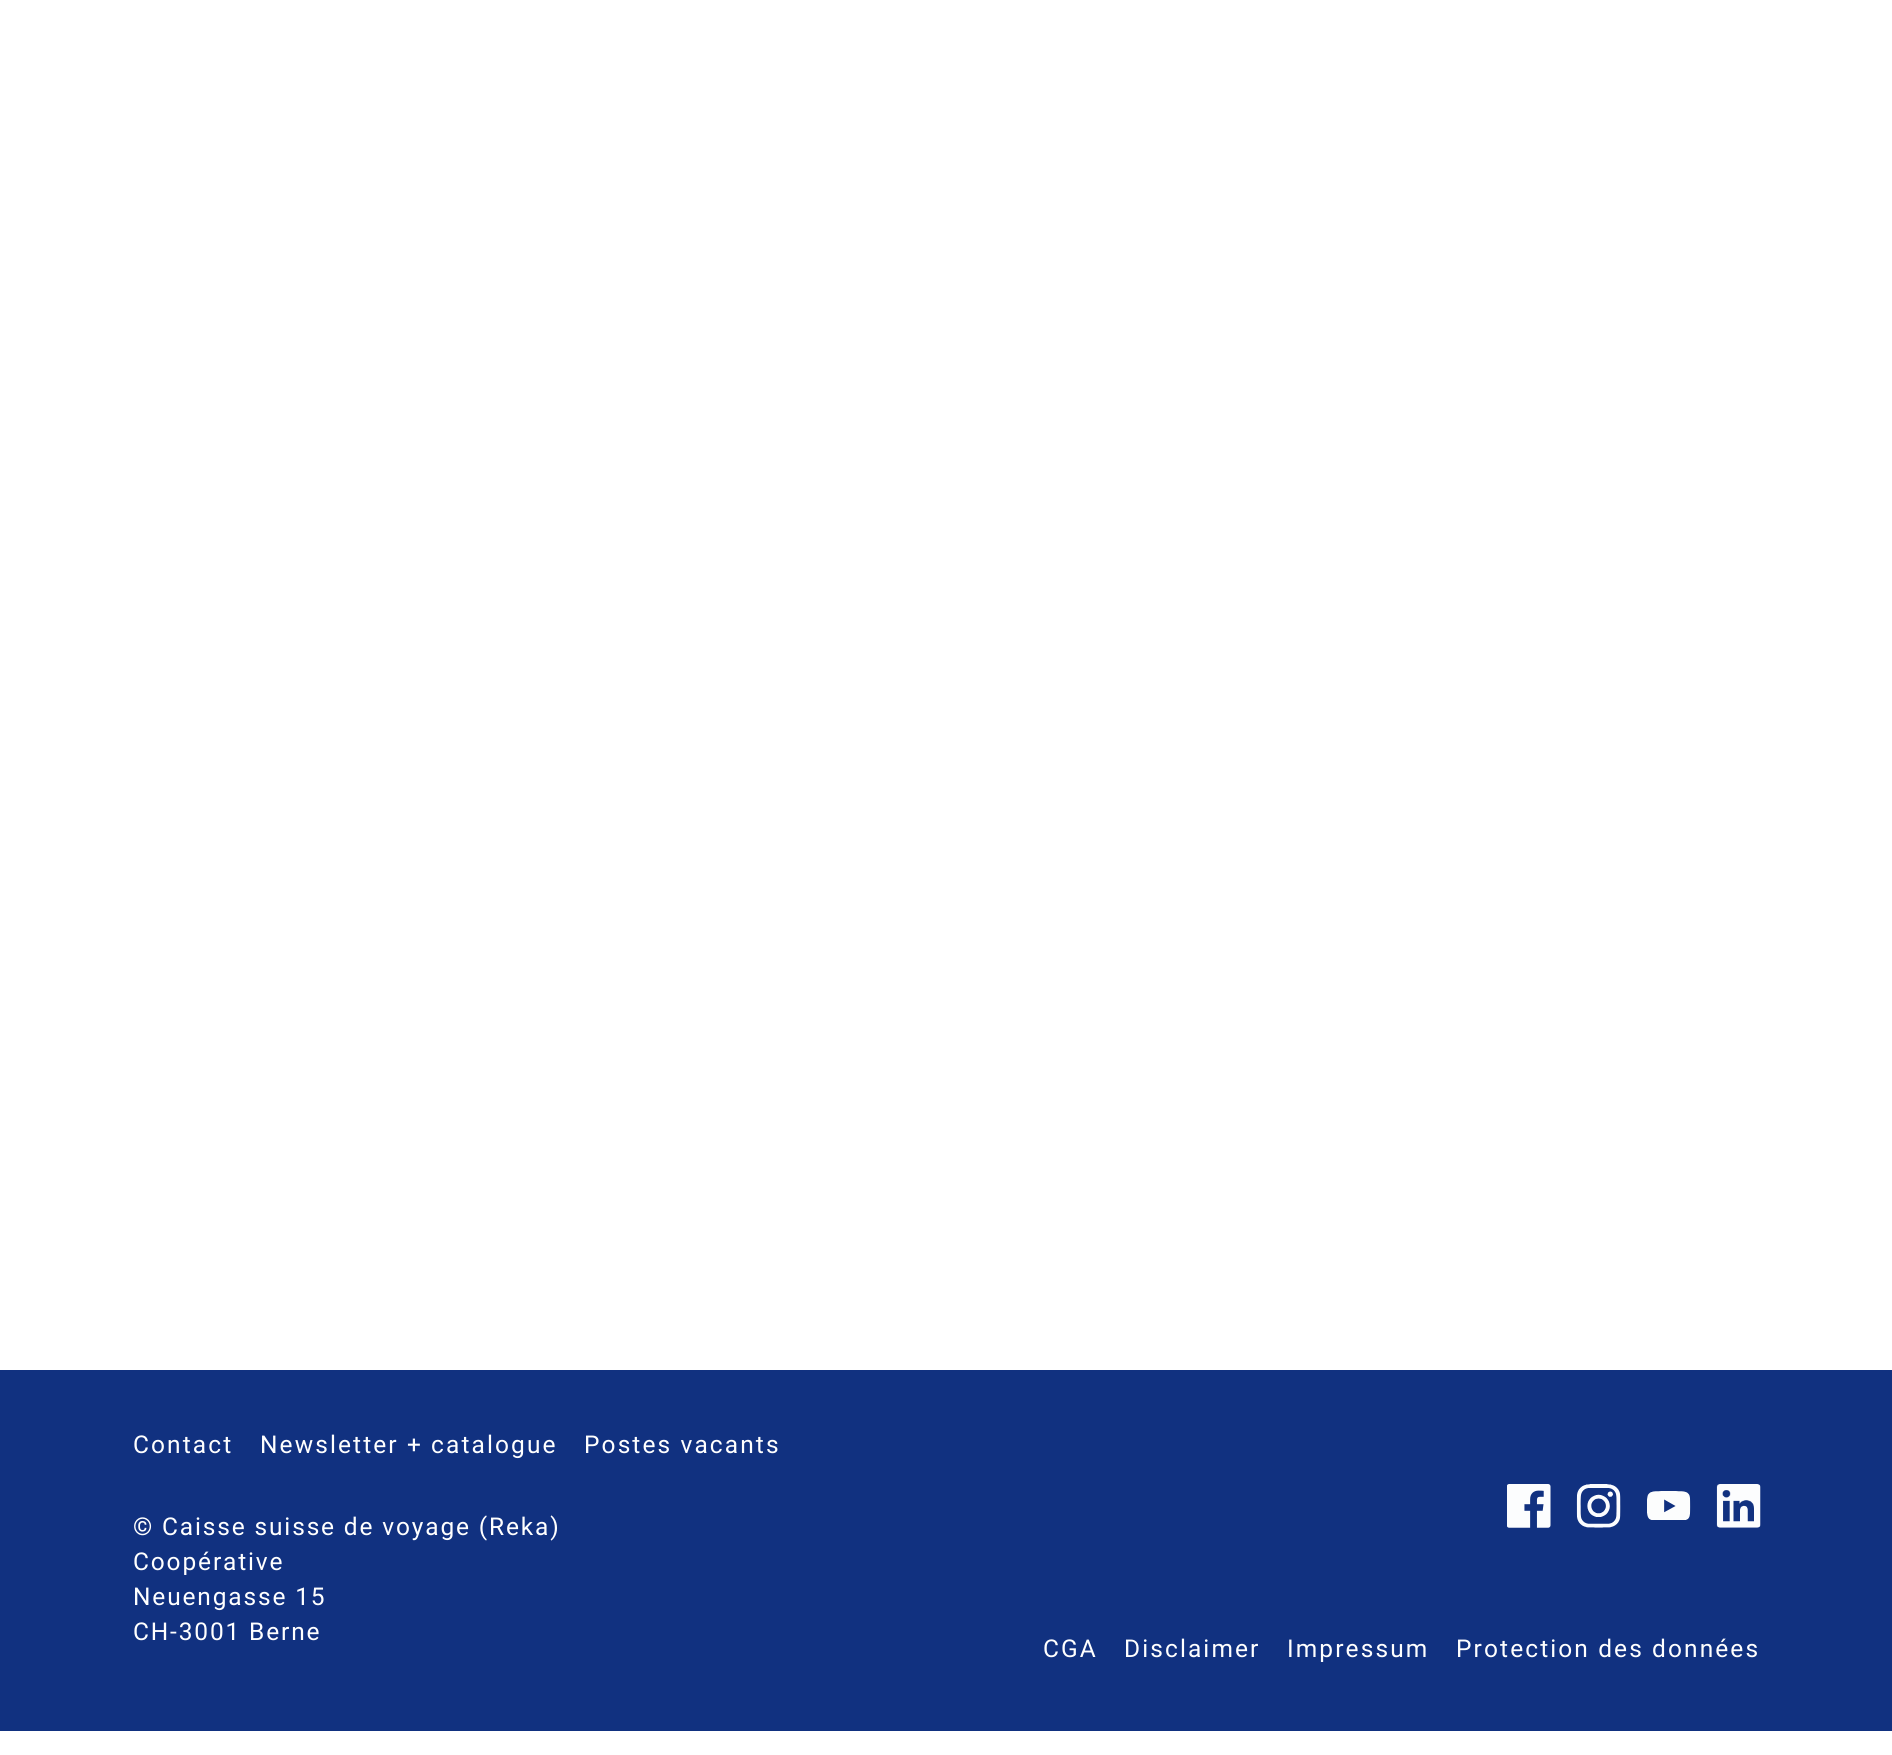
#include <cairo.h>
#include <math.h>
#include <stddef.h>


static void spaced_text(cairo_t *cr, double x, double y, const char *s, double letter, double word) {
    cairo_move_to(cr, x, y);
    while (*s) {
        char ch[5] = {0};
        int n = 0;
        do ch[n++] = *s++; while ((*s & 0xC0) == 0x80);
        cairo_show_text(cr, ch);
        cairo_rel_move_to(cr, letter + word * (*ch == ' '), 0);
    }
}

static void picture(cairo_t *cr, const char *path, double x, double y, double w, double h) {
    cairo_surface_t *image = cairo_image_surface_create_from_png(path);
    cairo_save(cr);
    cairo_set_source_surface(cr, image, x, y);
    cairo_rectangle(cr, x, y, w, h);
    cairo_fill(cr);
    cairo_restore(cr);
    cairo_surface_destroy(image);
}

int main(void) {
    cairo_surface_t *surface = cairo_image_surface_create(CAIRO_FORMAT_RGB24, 1892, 1755);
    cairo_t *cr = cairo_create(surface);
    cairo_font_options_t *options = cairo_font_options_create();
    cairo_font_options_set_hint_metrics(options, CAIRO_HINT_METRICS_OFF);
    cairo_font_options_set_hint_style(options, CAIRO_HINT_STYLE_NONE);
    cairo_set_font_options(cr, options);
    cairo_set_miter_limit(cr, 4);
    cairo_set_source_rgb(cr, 1, 1, 1);
    cairo_paint(cr);
    cairo_set_source_rgb(cr, 0.067, 0.192, 0.502);
    cairo_rectangle(cr, 0, 1370, 1892, 361);
    cairo_fill(cr);
    cairo_select_font_face(cr, "Roboto", CAIRO_FONT_SLANT_NORMAL, CAIRO_FONT_WEIGHT_NORMAL);
    cairo_set_font_size(cr, 24.5);
    cairo_set_source_rgb(cr, 1, 1, 1);
    spaced_text(cr, 133, 1453, "Contact", 2.1, 0);
    spaced_text(cr, 260, 1453, "Newsletter + catalogue", 2.1, 0);
    spaced_text(cr, 584, 1453, "Postes vacants", 2.1, 0);
    spaced_text(cr, 133, 1535, "© Caisse suisse de voyage (Reka)", 1.85, 0);
    spaced_text(cr, 133, 1570, "Coopérative", 1.85, 0);
    spaced_text(cr, 133, 1605, "Neuengasse 15", 1.85, 0);
    spaced_text(cr, 133, 1640, "CH-3001 Berne", 1.85, 0);
    picture(cr, "img1.png", 1507, 1484, 44, 44);
    picture(cr, "img2.png", 1576, 1484, 45, 44);
    picture(cr, "img3.png", 1647, 1491, 44, 29);
    picture(cr, "img4.png", 1716, 1484, 45, 44);
    spaced_text(cr, 1043, 1657, "CGA", 2.1, 0);
    spaced_text(cr, 1124, 1657, "Disclaimer", 2.1, 0);
    spaced_text(cr, 1287, 1657, "Impressum", 2.1, 0);
    spaced_text(cr, 1456, 1657, "Protection des données", 2.1, 0);
    cairo_surface_write_to_png(surface, "page.png");
    cairo_font_options_destroy(options);
    cairo_destroy(cr);
    cairo_surface_destroy(surface);
    return 0;
}
